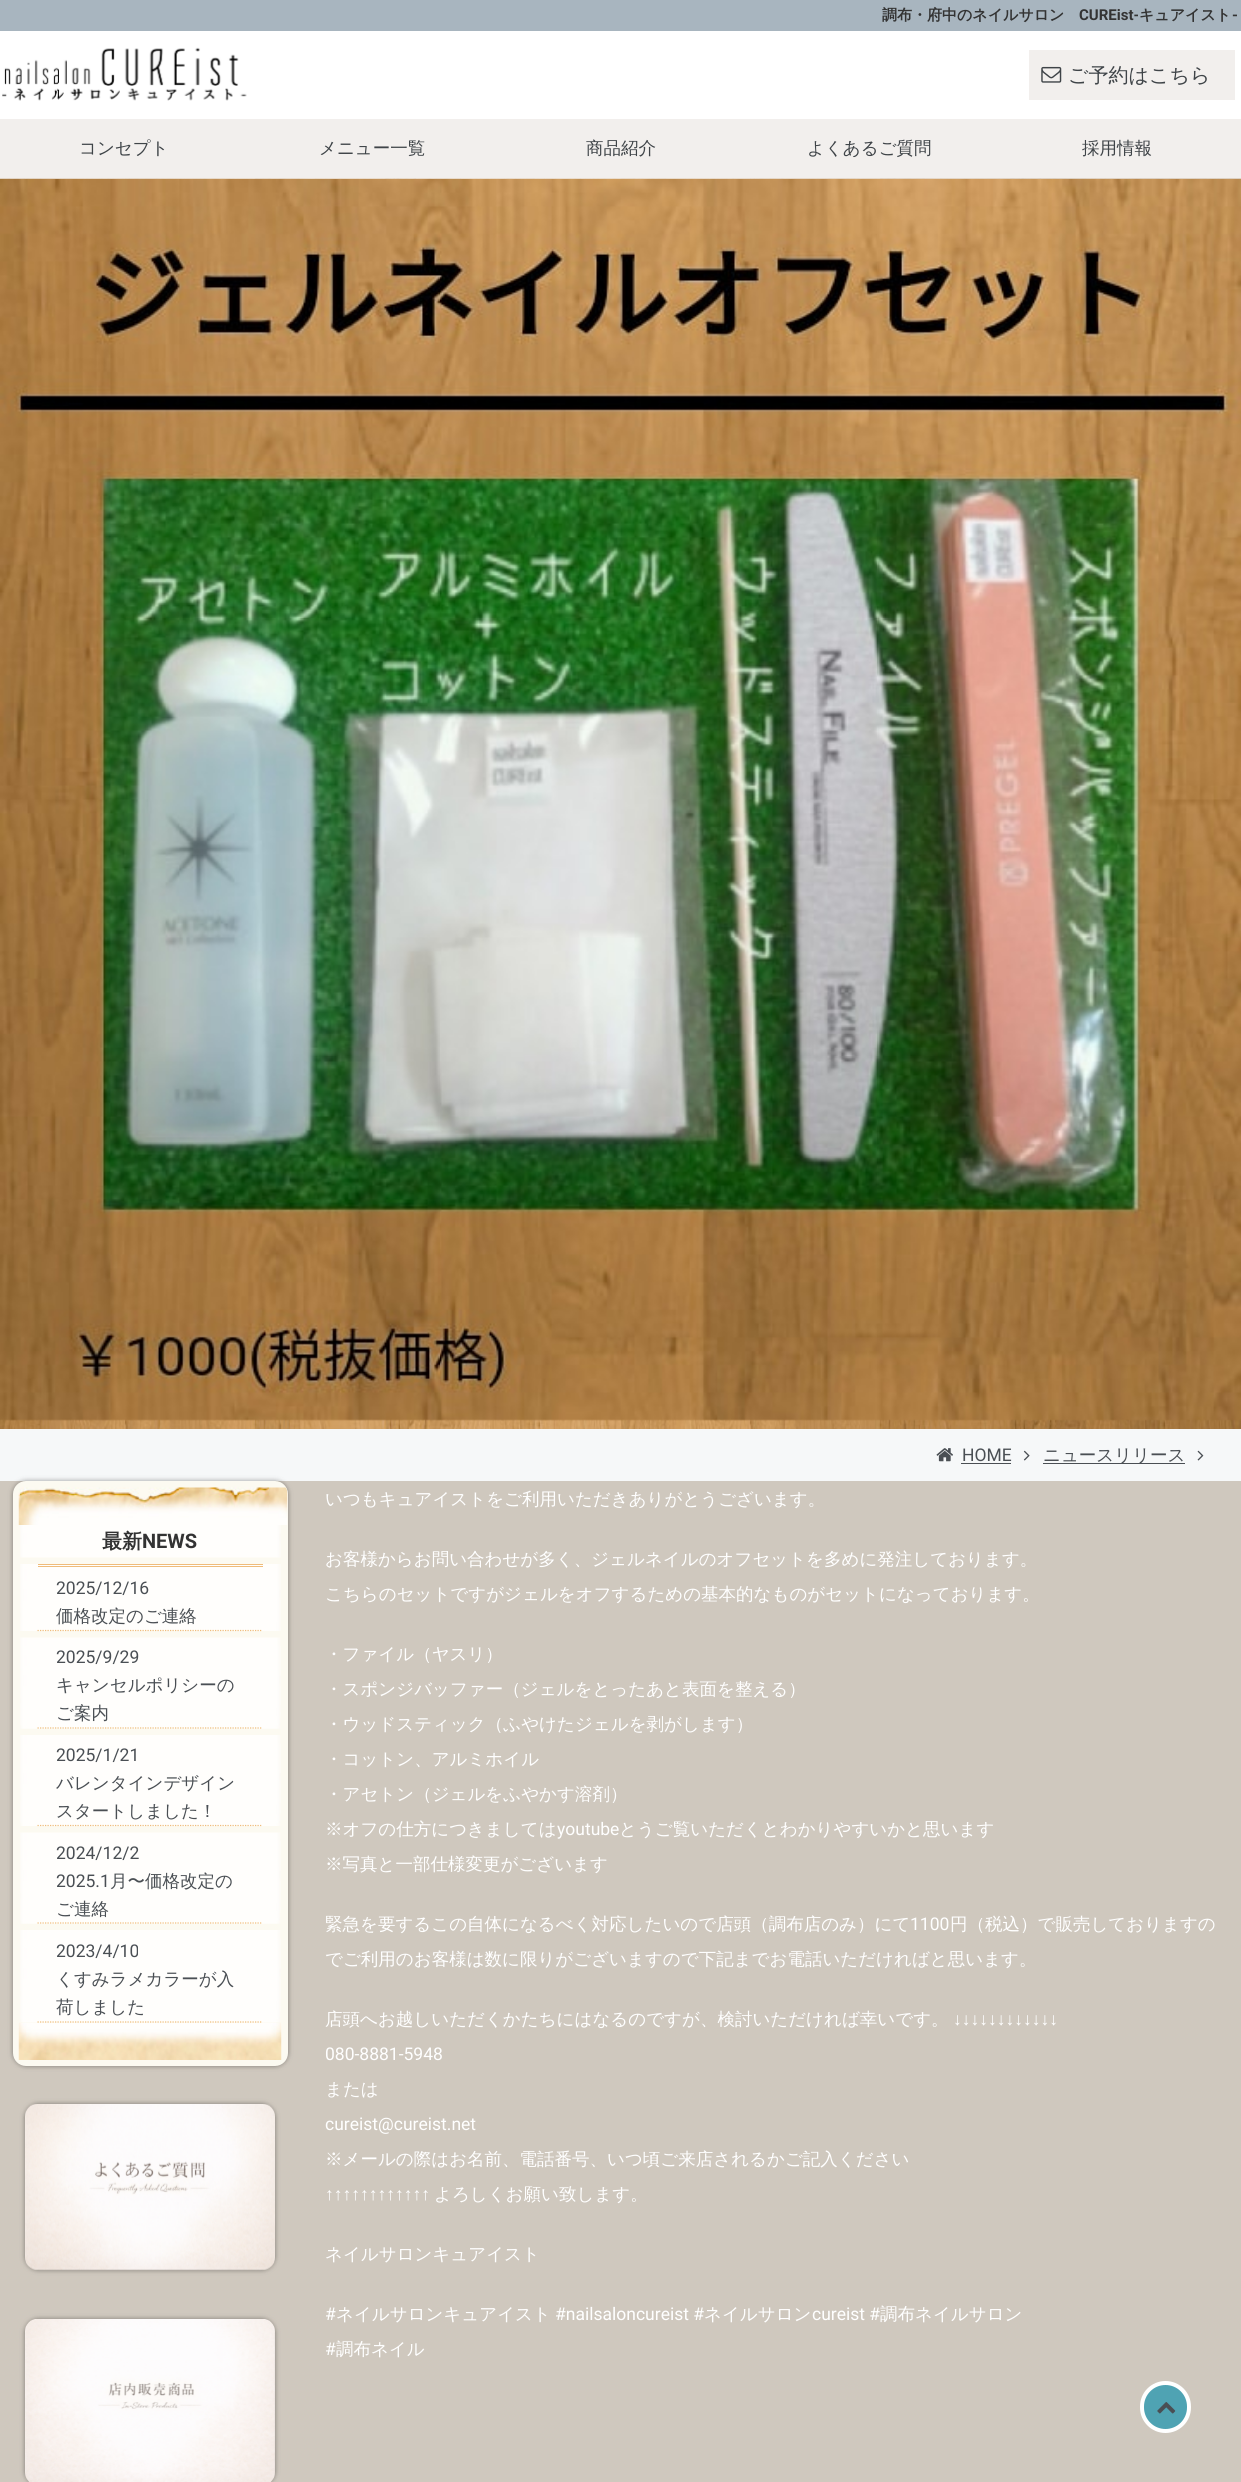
#include <cairo.h>
#include <math.h>
#include <stddef.h>


static void round_rect(cairo_t *cr, double x, double y, double w, double h, double r) {
    cairo_new_sub_path(cr);
    cairo_arc(cr, x + w - r, y + h - r, r, 0, M_PI / 2);
    cairo_arc(cr, x + r, y + h - r, r, M_PI / 2, M_PI);
    cairo_arc(cr, x + r, y + r, r, M_PI, 1.5 * M_PI);
    cairo_arc(cr, x + w - r, y + r, r, 1.5 * M_PI, 2 * M_PI);
    cairo_close_path(cr);
}

static void shadow(cairo_t *cr, double x, double y, double w, double h, double r, double blur, double alpha) {
    cairo_push_group_with_content(cr, CAIRO_CONTENT_ALPHA);
    cairo_set_operator(cr, CAIRO_OPERATOR_SOURCE);
    for (int i = 15; i >= -15 && fmin(w, h) + blur * i / 3 > 0; i -= 2) {
        double e = blur * i / 6;
        cairo_set_source_rgba(cr, 0, 0, 0, alpha * erfc((i - 1) / 8.5) / 2);
        round_rect(cr, x - e, y - e, w + 2 * e, h + 2 * e, fmax(0, fmin(r + e + blur * .6, fmin(w, h) / 2 + e)));
        cairo_fill(cr);
    }
    cairo_pattern_t *soft = cairo_pop_group(cr);
    cairo_mask(cr, soft);
    cairo_pattern_destroy(soft);
}

static void picture(cairo_t *cr, const char *path, double x, double y, double w, double h) {
    cairo_surface_t *image = cairo_image_surface_create_from_png(path);
    cairo_save(cr);
    cairo_set_source_surface(cr, image, x, y);
    cairo_rectangle(cr, x, y, w, h);
    cairo_fill(cr);
    cairo_restore(cr);
    cairo_surface_destroy(image);
}

int main(void) {
    cairo_surface_t *surface = cairo_image_surface_create(CAIRO_FORMAT_RGB24, 1241, 2482);
    cairo_t *cr = cairo_create(surface);
    cairo_font_options_t *options = cairo_font_options_create();
    cairo_font_options_set_hint_metrics(options, CAIRO_HINT_METRICS_OFF);
    cairo_font_options_set_hint_style(options, CAIRO_HINT_STYLE_NONE);
    cairo_set_font_options(cr, options);
    cairo_set_miter_limit(cr, 4);
    cairo_set_source_rgb(cr, 1, 1, 1);
    cairo_paint(cr);
    cairo_set_source_rgb(cr, 0.659, 0.71, 0.749);
    cairo_rectangle(cr, 0, 0, 1241, 31);
    cairo_fill(cr);
    cairo_select_font_face(cr, "WenQuanYi Zen Hei", CAIRO_FONT_SLANT_NORMAL, CAIRO_FONT_WEIGHT_BOLD);
    cairo_set_font_size(cr, 15);
    cairo_set_source_rgb(cr, 0.2, 0.2, 0.2);
    cairo_move_to(cr, 882, 20);
    cairo_show_text(cr, "調布・府中のネイルサロン");
    cairo_select_font_face(cr, "Roboto", CAIRO_FONT_SLANT_NORMAL, CAIRO_FONT_WEIGHT_BOLD);
    cairo_move_to(cr, 1079, 20);
    cairo_show_text(cr, "CUREist-");
    cairo_select_font_face(cr, "WenQuanYi Zen Hei", CAIRO_FONT_SLANT_NORMAL, CAIRO_FONT_WEIGHT_BOLD);
    cairo_move_to(cr, 1139, 20);
    cairo_show_text(cr, "キュアイスト");
    cairo_select_font_face(cr, "Roboto", CAIRO_FONT_SLANT_NORMAL, CAIRO_FONT_WEIGHT_BOLD);
    cairo_move_to(cr, 1232, 20);
    cairo_show_text(cr, "-");
    picture(cr, "img1.png", 2, 47, 245, 54);
    cairo_set_source_rgb(cr, 0.949, 0.937, 0.929);
    cairo_rectangle(cr, 1029, 50, 206, 50);
    cairo_fill(cr);
    picture(cr, "img2.png", 1041, 66, 21, 17);
    cairo_select_font_face(cr, "WenQuanYi Zen Hei Medium", CAIRO_FONT_SLANT_NORMAL, CAIRO_FONT_WEIGHT_NORMAL);
    cairo_set_font_size(cr, 20);
    cairo_set_source_rgb(cr, 0.247, 0.267, 0.282);
    cairo_move_to(cr, 1068, 82);
    cairo_show_text(cr, "ご予約はこちら");
    cairo_set_source_rgb(cr, 0.949, 0.937, 0.929);
    cairo_rectangle(cr, 0, 119, 1241, 60);
    cairo_fill(cr);
    cairo_set_font_size(cr, 17.5);
    cairo_set_source_rgb(cr, 0.247, 0.267, 0.282);
    cairo_move_to(cr, 79, 154);
    cairo_show_text(cr, "コンセプト");
    cairo_move_to(cr, 319, 154);
    cairo_show_text(cr, "メニュー一覧");
    cairo_move_to(cr, 586, 154);
    cairo_show_text(cr, "商品紹介");
    cairo_move_to(cr, 807, 154);
    cairo_show_text(cr, "よくあるご質問");
    cairo_move_to(cr, 1082, 154);
    cairo_show_text(cr, "採用情報");
    picture(cr, "img3.png", 0, 178, 1241, 1251);
    picture(cr, "img4.png", 0, 179, 1241, 1242);
    cairo_set_source_rgb(cr, 0.961, 0.969, 0.973);
    cairo_rectangle(cr, 0, 1429, 1241, 52);
    cairo_fill(cr);
    picture(cr, "img5.png", 936, 1448, 17, 14);
    cairo_select_font_face(cr, "Roboto", CAIRO_FONT_SLANT_NORMAL, CAIRO_FONT_WEIGHT_NORMAL);
    cairo_set_source_rgb(cr, 0.29, 0.31, 0.329);
    cairo_move_to(cr, 962, 1461);
    cairo_show_text(cr, "HOME");
    cairo_rectangle(cr, 961, 1463, 50, 1);
    cairo_fill(cr);
    picture(cr, "img6.png", 1023, 1450, 7, 11);
    cairo_rectangle(cr, 1043, 1463, 142, 1);
    cairo_fill(cr);
    cairo_select_font_face(cr, "WenQuanYi Zen Hei Medium", CAIRO_FONT_SLANT_NORMAL, CAIRO_FONT_WEIGHT_NORMAL);
    cairo_move_to(cr, 1043, 1461);
    cairo_show_text(cr, "ニュースリリース");
    picture(cr, "img7.png", 1197, 1450, 7, 11);
    cairo_set_source_rgb(cr, 0.812, 0.784, 0.745);
    cairo_rectangle(cr, 0, 1481, 1241, 1001);
    cairo_fill(cr);
    cairo_set_source_rgb(cr, 0, 0, 0);
    shadow(cr, 13, 1481, 275, 585, 13, 2.5, 0.4);
    cairo_set_source_rgb(cr, 0.988, 0.98, 0.945);
    round_rect(cr, 13, 1481, 275, 585, 13);
    cairo_fill(cr);
    picture(cr, "img8.png", 18, 1487, 270, 38);
    picture(cr, "img9.png", 20, 1525, 261, 33);
    cairo_select_font_face(cr, "WenQuanYi Zen Hei", CAIRO_FONT_SLANT_NORMAL, CAIRO_FONT_WEIGHT_BOLD);
    cairo_set_font_size(cr, 20);
    cairo_set_source_rgb(cr, 0.2, 0.2, 0.2);
    cairo_move_to(cr, 102, 1548);
    cairo_show_text(cr, "最新");
    cairo_select_font_face(cr, "Roboto", CAIRO_FONT_SLANT_NORMAL, CAIRO_FONT_WEIGHT_BOLD);
    cairo_move_to(cr, 142, 1548);
    cairo_show_text(cr, "NEWS");
    picture(cr, "img10.png", 18, 2022, 264, 38);
    picture(cr, "img11.png", 20, 1564, 261, 67);
    cairo_set_source_rgb(cr, 0.937, 0.737, 0.478);
    cairo_rectangle(cr, 38, 1564, 225, 1);
    cairo_fill(cr);
    cairo_rectangle(cr, 38, 1566, 225, 1);
    cairo_fill(cr);
    cairo_new_path(cr);
    cairo_move_to(cr, 37.5, 1630.5);
    cairo_line_to(cr, 262.5, 1630.5);
    cairo_set_line_width(cr, 1.2);
    cairo_set_dash(cr, (double[]){1.25, 1.25}, 2, 0);
    cairo_stroke(cr);
    cairo_select_font_face(cr, "Roboto", CAIRO_FONT_SLANT_NORMAL, CAIRO_FONT_WEIGHT_NORMAL);
    cairo_set_font_size(cr, 17.5);
    cairo_set_source_rgb(cr, 0.29, 0.31, 0.329);
    cairo_move_to(cr, 56, 1594);
    cairo_show_text(cr, "2025/12/16");
    cairo_select_font_face(cr, "WenQuanYi Zen Hei Medium", CAIRO_FONT_SLANT_NORMAL, CAIRO_FONT_WEIGHT_NORMAL);
    cairo_move_to(cr, 56, 1622);
    cairo_show_text(cr, "価格改定のご連絡");
    picture(cr, "img12.png", 20, 1637, 261, 92);
    cairo_new_path(cr);
    cairo_move_to(cr, 37.5, 1728);
    cairo_line_to(cr, 262.5, 1728);
    cairo_set_source_rgb(cr, 0.937, 0.737, 0.478);
    cairo_stroke(cr);
    cairo_select_font_face(cr, "Roboto", CAIRO_FONT_SLANT_NORMAL, CAIRO_FONT_WEIGHT_NORMAL);
    cairo_set_source_rgb(cr, 0.29, 0.31, 0.329);
    cairo_move_to(cr, 56, 1663);
    cairo_show_text(cr, "2025/9/29");
    cairo_select_font_face(cr, "WenQuanYi Zen Hei Medium", CAIRO_FONT_SLANT_NORMAL, CAIRO_FONT_WEIGHT_NORMAL);
    cairo_move_to(cr, 56, 1691);
    cairo_show_text(cr, "キャンセルポリシーの");
    cairo_move_to(cr, 56, 1719);
    cairo_show_text(cr, "ご案内");
    picture(cr, "img13.png", 20, 1735, 261, 91);
    cairo_new_path(cr);
    cairo_move_to(cr, 37.5, 1825.5);
    cairo_line_to(cr, 262.5, 1825.5);
    cairo_set_source_rgb(cr, 0.937, 0.737, 0.478);
    cairo_stroke(cr);
    cairo_select_font_face(cr, "Roboto", CAIRO_FONT_SLANT_NORMAL, CAIRO_FONT_WEIGHT_NORMAL);
    cairo_set_source_rgb(cr, 0.29, 0.31, 0.329);
    cairo_move_to(cr, 56, 1761);
    cairo_show_text(cr, "2025/1/21");
    cairo_select_font_face(cr, "WenQuanYi Zen Hei Medium", CAIRO_FONT_SLANT_NORMAL, CAIRO_FONT_WEIGHT_NORMAL);
    cairo_move_to(cr, 56, 1789);
    cairo_show_text(cr, "バレンタインデザイン");
    cairo_move_to(cr, 56, 1817);
    cairo_show_text(cr, "スタートしました！");
    picture(cr, "img12.png", 20, 1832, 261, 92);
    cairo_new_path(cr);
    cairo_move_to(cr, 37.5, 1923);
    cairo_line_to(cr, 262.5, 1923);
    cairo_set_source_rgb(cr, 0.937, 0.737, 0.478);
    cairo_stroke(cr);
    cairo_select_font_face(cr, "Roboto", CAIRO_FONT_SLANT_NORMAL, CAIRO_FONT_WEIGHT_NORMAL);
    cairo_set_source_rgb(cr, 0.29, 0.31, 0.329);
    cairo_move_to(cr, 56, 1859);
    cairo_show_text(cr, "2024/12/2");
    cairo_move_to(cr, 56, 1887);
    cairo_show_text(cr, "2025.1");
    cairo_select_font_face(cr, "WenQuanYi Zen Hei Medium", CAIRO_FONT_SLANT_NORMAL, CAIRO_FONT_WEIGHT_NORMAL);
    cairo_move_to(cr, 110, 1887);
    cairo_show_text(cr, "月〜価格改定の");
    cairo_move_to(cr, 56, 1915);
    cairo_show_text(cr, "ご連絡");
    picture(cr, "img14.png", 20, 1930, 261, 92);
    cairo_new_path(cr);
    cairo_move_to(cr, 37.5, 2022);
    cairo_line_to(cr, 262.5, 2022);
    cairo_set_source_rgb(cr, 0.937, 0.737, 0.478);
    cairo_stroke(cr);
    cairo_select_font_face(cr, "Roboto", CAIRO_FONT_SLANT_NORMAL, CAIRO_FONT_WEIGHT_NORMAL);
    cairo_set_source_rgb(cr, 0.29, 0.31, 0.329);
    cairo_move_to(cr, 56, 1957);
    cairo_show_text(cr, "2023/4/10");
    cairo_select_font_face(cr, "WenQuanYi Zen Hei Medium", CAIRO_FONT_SLANT_NORMAL, CAIRO_FONT_WEIGHT_NORMAL);
    cairo_move_to(cr, 56, 1985);
    cairo_show_text(cr, "くすみラメカラーが入");
    cairo_move_to(cr, 56, 2013);
    cairo_show_text(cr, "荷しました");
    cairo_set_source_rgb(cr, 0, 0, 0);
    shadow(cr, 25, 2104, 250, 166, 13, 2.5, 0.4);
    picture(cr, "img15.png", 25, 2104, 250, 167);
    shadow(cr, 25, 2319, 250, 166, 13, 2.5, 0.4);
    picture(cr, "img16.png", 25, 2319, 250, 163);
    cairo_set_source_rgb(cr, 1, 1, 1);
    cairo_move_to(cr, 325, 1505);
    cairo_show_text(cr, "いつもキュアイストをご利用いただきありがとうございます。");
    cairo_move_to(cr, 325, 1565);
    cairo_show_text(cr, "お客様からお問い合わせが多く、ジェルネイルのオフセットを多めに発注しております。");
    cairo_move_to(cr, 325, 1600);
    cairo_show_text(cr, "こちらのセットですがジェルをオフするための基本的なものがセットになっております。");
    cairo_move_to(cr, 325, 1660);
    cairo_show_text(cr, "・ファイル（ヤスリ）");
    cairo_move_to(cr, 325, 1695);
    cairo_show_text(cr, "・スポンジバッファー（ジェルをとったあと表面を整える）");
    cairo_move_to(cr, 325, 1730);
    cairo_show_text(cr, "・ウッドスティック（ふやけたジェルを剥がします）");
    cairo_move_to(cr, 325, 1765);
    cairo_show_text(cr, "・コットン、アルミホイル");
    cairo_move_to(cr, 325, 1800);
    cairo_show_text(cr, "・アセトン（ジェルをふやかす溶剤）");
    cairo_move_to(cr, 325, 1835);
    cairo_show_text(cr, "※オフの仕方につきましては");
    cairo_select_font_face(cr, "Roboto", CAIRO_FONT_SLANT_NORMAL, CAIRO_FONT_WEIGHT_NORMAL);
    cairo_move_to(cr, 557, 1835);
    cairo_show_text(cr, "youtube");
    cairo_select_font_face(cr, "WenQuanYi Zen Hei Medium", CAIRO_FONT_SLANT_NORMAL, CAIRO_FONT_WEIGHT_NORMAL);
    cairo_move_to(cr, 619, 1835);
    cairo_show_text(cr, "とうご覧いただくとわかりやすいかと思います");
    cairo_move_to(cr, 325, 1870);
    cairo_show_text(cr, "※写真と一部仕様変更がございます");
    cairo_move_to(cr, 325, 1930);
    cairo_show_text(cr, "緊急を要するこの自体になるべく対応したいので店頭（調布店のみ）にて");
    cairo_select_font_face(cr, "Roboto", CAIRO_FONT_SLANT_NORMAL, CAIRO_FONT_WEIGHT_NORMAL);
    cairo_move_to(cr, 910, 1930);
    cairo_show_text(cr, "1100");
    cairo_select_font_face(cr, "WenQuanYi Zen Hei Medium", CAIRO_FONT_SLANT_NORMAL, CAIRO_FONT_WEIGHT_NORMAL);
    cairo_move_to(cr, 950, 1930);
    cairo_show_text(cr, "円（税込）で販売しておりますの");
    cairo_move_to(cr, 325, 1965);
    cairo_show_text(cr, "でご利用のお客様は数に限りがございますので下記までお電話いただければと思います。");
    cairo_move_to(cr, 325, 2025);
    cairo_show_text(cr, "店頭へお越しいただくかたちにはなるのですが、検討いただければ幸いです。");
    cairo_select_font_face(cr, "Liberation Sans", CAIRO_FONT_SLANT_NORMAL, CAIRO_FONT_WEIGHT_NORMAL);
    cairo_move_to(cr, 953, 2025);
    cairo_show_text(cr, "↓↓↓↓↓↓↓↓↓↓↓↓");
    cairo_select_font_face(cr, "Roboto", CAIRO_FONT_SLANT_NORMAL, CAIRO_FONT_WEIGHT_NORMAL);
    cairo_move_to(cr, 325, 2060);
    cairo_show_text(cr, "080-8881-5948");
    cairo_select_font_face(cr, "WenQuanYi Zen Hei Medium", CAIRO_FONT_SLANT_NORMAL, CAIRO_FONT_WEIGHT_NORMAL);
    cairo_move_to(cr, 325, 2095);
    cairo_show_text(cr, "または");
    cairo_select_font_face(cr, "Roboto", CAIRO_FONT_SLANT_NORMAL, CAIRO_FONT_WEIGHT_NORMAL);
    cairo_move_to(cr, 325, 2130);
    cairo_show_text(cr, "cureist@cureist.net");
    cairo_select_font_face(cr, "WenQuanYi Zen Hei Medium", CAIRO_FONT_SLANT_NORMAL, CAIRO_FONT_WEIGHT_NORMAL);
    cairo_move_to(cr, 325, 2165);
    cairo_show_text(cr, "※メールの際はお名前、電話番号、いつ頃ご来店されるかご記入ください");
    cairo_select_font_face(cr, "Liberation Sans", CAIRO_FONT_SLANT_NORMAL, CAIRO_FONT_WEIGHT_NORMAL);
    cairo_move_to(cr, 325, 2200);
    cairo_show_text(cr, "↑↑↑↑↑↑↑↑↑↑↑↑");
    cairo_select_font_face(cr, "WenQuanYi Zen Hei Medium", CAIRO_FONT_SLANT_NORMAL, CAIRO_FONT_WEIGHT_NORMAL);
    cairo_move_to(cr, 434, 2200);
    cairo_show_text(cr, "よろしくお願い致します。");
    cairo_move_to(cr, 325, 2260);
    cairo_show_text(cr, "ネイルサロンキュアイスト");
    cairo_select_font_face(cr, "Roboto", CAIRO_FONT_SLANT_NORMAL, CAIRO_FONT_WEIGHT_NORMAL);
    cairo_move_to(cr, 325, 2320);
    cairo_show_text(cr, "#");
    cairo_select_font_face(cr, "WenQuanYi Zen Hei Medium", CAIRO_FONT_SLANT_NORMAL, CAIRO_FONT_WEIGHT_NORMAL);
    cairo_move_to(cr, 336, 2320);
    cairo_show_text(cr, "ネイルサロンキュアイスト");
    cairo_select_font_face(cr, "Roboto", CAIRO_FONT_SLANT_NORMAL, CAIRO_FONT_WEIGHT_NORMAL);
    cairo_move_to(cr, 555, 2320);
    cairo_show_text(cr, "#nailsaloncureist #");
    cairo_select_font_face(cr, "WenQuanYi Zen Hei Medium", CAIRO_FONT_SLANT_NORMAL, CAIRO_FONT_WEIGHT_NORMAL);
    cairo_move_to(cr, 704, 2320);
    cairo_show_text(cr, "ネイルサロン");
    cairo_select_font_face(cr, "Roboto", CAIRO_FONT_SLANT_NORMAL, CAIRO_FONT_WEIGHT_NORMAL);
    cairo_move_to(cr, 812, 2320);
    cairo_show_text(cr, "cureist #");
    cairo_select_font_face(cr, "WenQuanYi Zen Hei Medium", CAIRO_FONT_SLANT_NORMAL, CAIRO_FONT_WEIGHT_NORMAL);
    cairo_move_to(cr, 880, 2320);
    cairo_show_text(cr, "調布ネイルサロン");
    cairo_select_font_face(cr, "Roboto", CAIRO_FONT_SLANT_NORMAL, CAIRO_FONT_WEIGHT_NORMAL);
    cairo_move_to(cr, 325, 2355);
    cairo_show_text(cr, "#");
    cairo_select_font_face(cr, "WenQuanYi Zen Hei Medium", CAIRO_FONT_SLANT_NORMAL, CAIRO_FONT_WEIGHT_NORMAL);
    cairo_move_to(cr, 336, 2355);
    cairo_show_text(cr, "調布ネイル");
    cairo_set_source_rgb(cr, 0.31, 0.639, 0.702);
    round_rect(cr, 1142, 2383, 47, 48, 23.5);
    cairo_fill_preserve(cr);
    cairo_set_source_rgb(cr, 1, 1, 1);
    cairo_set_line_width(cr, 4);
    cairo_set_dash(cr, NULL, 0, 0);
    cairo_stroke(cr);
    picture(cr, "img17.png", 1157, 2402, 19, 12);
    cairo_surface_write_to_png(surface, "page.png");
    cairo_font_options_destroy(options);
    cairo_destroy(cr);
    cairo_surface_destroy(surface);
    return 0;
}
